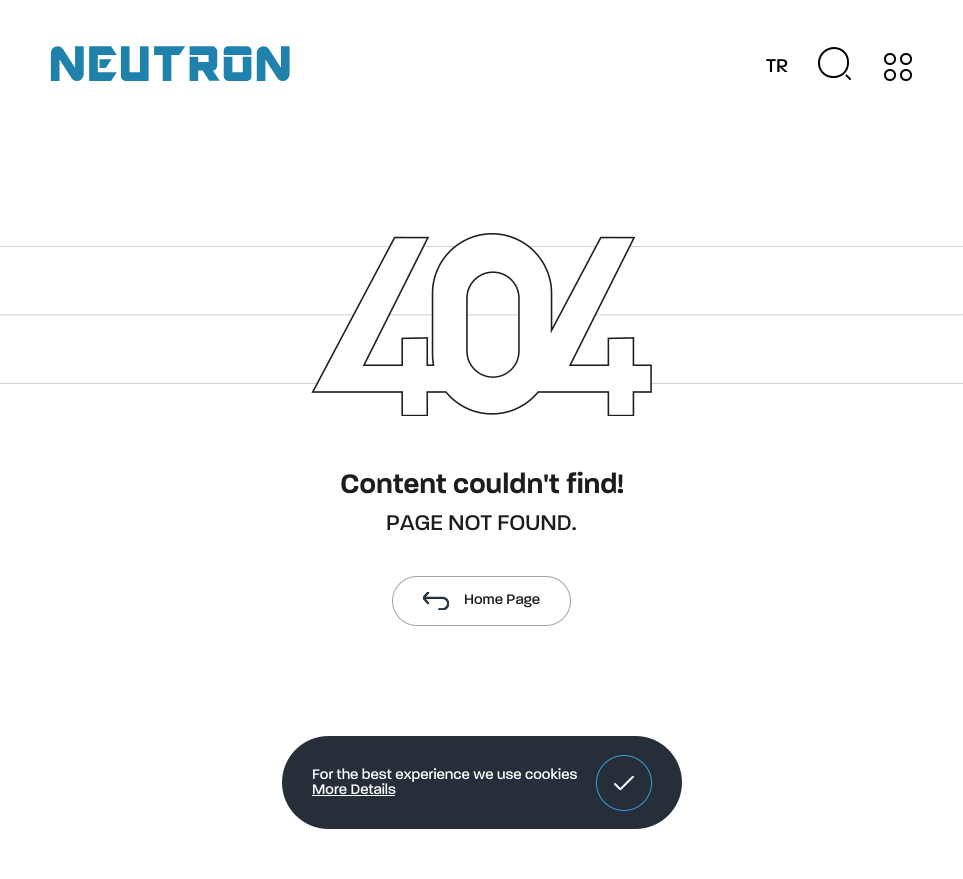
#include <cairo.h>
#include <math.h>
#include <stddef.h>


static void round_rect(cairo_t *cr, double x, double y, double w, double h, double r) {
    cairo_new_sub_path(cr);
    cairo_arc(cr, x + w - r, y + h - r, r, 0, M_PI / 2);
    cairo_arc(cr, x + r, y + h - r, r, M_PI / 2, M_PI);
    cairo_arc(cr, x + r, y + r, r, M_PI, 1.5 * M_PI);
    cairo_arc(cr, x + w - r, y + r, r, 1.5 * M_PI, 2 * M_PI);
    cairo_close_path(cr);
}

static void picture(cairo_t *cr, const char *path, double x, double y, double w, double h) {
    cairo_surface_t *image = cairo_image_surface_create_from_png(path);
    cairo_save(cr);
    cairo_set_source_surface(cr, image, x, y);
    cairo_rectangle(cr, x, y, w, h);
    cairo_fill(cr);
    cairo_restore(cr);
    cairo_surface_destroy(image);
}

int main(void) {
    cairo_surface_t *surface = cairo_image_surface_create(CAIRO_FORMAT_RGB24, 963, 879);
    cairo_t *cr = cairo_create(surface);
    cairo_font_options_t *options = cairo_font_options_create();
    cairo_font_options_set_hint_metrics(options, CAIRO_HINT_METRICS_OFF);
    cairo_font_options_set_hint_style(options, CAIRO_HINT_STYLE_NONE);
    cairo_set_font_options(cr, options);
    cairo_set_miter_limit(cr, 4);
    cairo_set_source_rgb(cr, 1, 1, 1);
    cairo_paint(cr);
    picture(cr, "img1.png", 50, 46, 240, 35);
    cairo_select_font_face(cr, "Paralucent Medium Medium", CAIRO_FONT_SLANT_NORMAL, CAIRO_FONT_WEIGHT_NORMAL);
    cairo_set_font_size(cr, 20);
    cairo_set_source_rgb(cr, 0, 0, 0);
    cairo_move_to(cr, 766, 72);
    cairo_show_text(cr, "TR");
    cairo_new_path(cr);
    cairo_move_to(cr, 848, 62.5);
    cairo_curve_to(cr, 848, 81.5, 820, 82, 819, 63.5);
    cairo_curve_to(cr, 818.5, 49, 837.5, 42, 846, 54.5);
    cairo_curve_to(cr, 847.5, 57, 848, 59.5, 848, 62.5);
    cairo_close_path(cr);
    cairo_move_to(cr, 850, 79);
    cairo_line_to(cr, 846.5, 75.5);
    cairo_set_line_cap(cr, CAIRO_LINE_CAP_ROUND);
    cairo_set_line_join(cr, CAIRO_LINE_JOIN_ROUND);
    cairo_stroke(cr);
    cairo_arc(cr, 890, 59, 5, 0, 2 * M_PI);
    cairo_set_line_cap(cr, CAIRO_LINE_CAP_BUTT);
    cairo_set_line_join(cr, CAIRO_LINE_JOIN_MITER);
    cairo_stroke(cr);
    cairo_arc(cr, 906, 59, 5, 0, 2 * M_PI);
    cairo_stroke(cr);
    cairo_arc(cr, 890, 75, 5, 0, 2 * M_PI);
    cairo_stroke(cr);
    cairo_arc(cr, 906, 75, 5, 0, 2 * M_PI);
    cairo_stroke(cr);
    picture(cr, "img2.png", 0, 233, 963, 183);
    cairo_select_font_face(cr, "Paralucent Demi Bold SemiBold", CAIRO_FONT_SLANT_NORMAL, CAIRO_FONT_WEIGHT_NORMAL);
    cairo_set_font_size(cr, 28.9);
    cairo_set_source_rgb(cr, 0.114, 0.114, 0.11);
    cairo_move_to(cr, 340, 493);
    cairo_show_text(cr, "Content couldn't find!");
    cairo_select_font_face(cr, "Paralucent Medium Medium", CAIRO_FONT_SLANT_NORMAL, CAIRO_FONT_WEIGHT_NORMAL);
    cairo_set_font_size(cr, 23);
    cairo_move_to(cr, 386, 530);
    cairo_show_text(cr, "PAGE NOT FOUND.");
    round_rect(cr, 392.5, 576.5, 178, 49, 24.5);
    cairo_set_source_rgb(cr, 0.647, 0.647, 0.643);
    cairo_set_line_width(cr, 1);
    cairo_stroke(cr);
    picture(cr, "img3.png", 423, 592, 26, 18);
    cairo_set_font_size(cr, 15);
    cairo_set_source_rgb(cr, 0.114, 0.114, 0.11);
    cairo_move_to(cr, 464, 604);
    cairo_show_text(cr, "Home Page");
    cairo_set_source_rgb(cr, 0.145, 0.18, 0.224);
    round_rect(cr, 282, 736, 400, 93, 46.5);
    cairo_fill(cr);
    cairo_set_source_rgb(cr, 1, 1, 1);
    cairo_move_to(cr, 312, 779);
    cairo_show_text(cr, "For the best experience we use cookies");
    cairo_move_to(cr, 312, 794);
    cairo_show_text(cr, "More Details");
    cairo_rectangle(cr, 312, 795, 83, 1);
    cairo_fill(cr);
    cairo_arc(cr, 624, 783, 27.5, 0, 2 * M_PI);
    cairo_set_source_rgb(cr, 0.212, 0.62, 0.847);
    cairo_stroke(cr);
    picture(cr, "img4.png", 614, 776, 20, 14);
    cairo_surface_write_to_png(surface, "page.png");
    cairo_font_options_destroy(options);
    cairo_destroy(cr);
    cairo_surface_destroy(surface);
    return 0;
}
